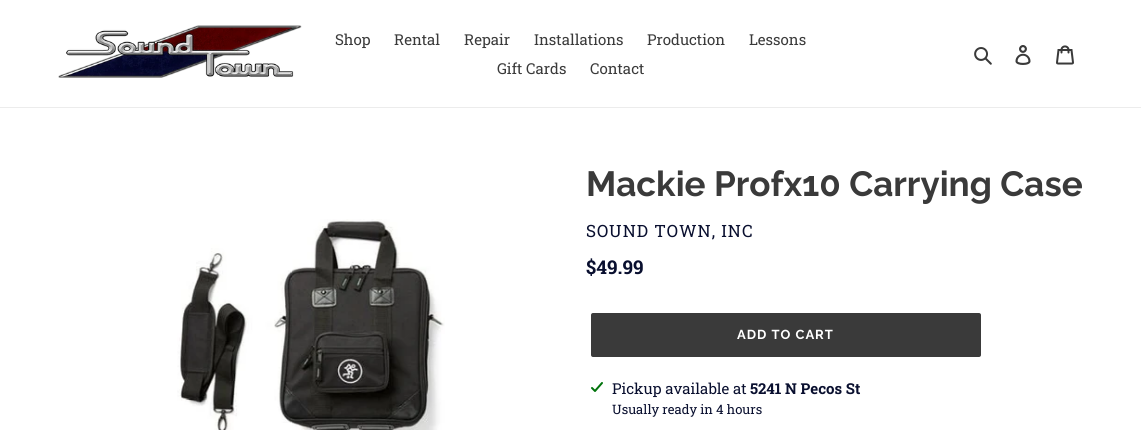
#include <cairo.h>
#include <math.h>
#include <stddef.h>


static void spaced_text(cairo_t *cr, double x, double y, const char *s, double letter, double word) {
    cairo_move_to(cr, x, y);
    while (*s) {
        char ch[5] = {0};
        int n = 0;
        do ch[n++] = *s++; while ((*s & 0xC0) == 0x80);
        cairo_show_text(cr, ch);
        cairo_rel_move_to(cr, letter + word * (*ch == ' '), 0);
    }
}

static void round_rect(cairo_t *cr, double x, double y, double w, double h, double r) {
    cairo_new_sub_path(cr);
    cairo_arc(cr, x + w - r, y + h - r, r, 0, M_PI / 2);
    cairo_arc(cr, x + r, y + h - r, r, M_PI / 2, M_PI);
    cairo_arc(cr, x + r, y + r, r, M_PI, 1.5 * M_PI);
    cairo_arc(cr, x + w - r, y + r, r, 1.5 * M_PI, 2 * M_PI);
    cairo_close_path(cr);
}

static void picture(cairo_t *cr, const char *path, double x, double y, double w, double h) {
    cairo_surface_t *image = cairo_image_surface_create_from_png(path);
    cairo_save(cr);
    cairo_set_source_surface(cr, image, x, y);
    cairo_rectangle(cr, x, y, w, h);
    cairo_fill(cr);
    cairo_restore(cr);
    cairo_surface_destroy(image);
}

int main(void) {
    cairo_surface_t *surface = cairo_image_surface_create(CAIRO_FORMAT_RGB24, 1141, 430);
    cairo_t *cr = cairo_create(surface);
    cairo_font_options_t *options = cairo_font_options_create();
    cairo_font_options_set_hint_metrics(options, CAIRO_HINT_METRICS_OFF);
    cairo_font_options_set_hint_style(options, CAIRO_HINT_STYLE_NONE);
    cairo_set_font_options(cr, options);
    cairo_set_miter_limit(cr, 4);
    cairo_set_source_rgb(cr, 1, 1, 1);
    cairo_paint(cr);
    cairo_set_source_rgb(cr, 0.922, 0.922, 0.922);
    cairo_rectangle(cr, 0, 107, 1141, 1);
    cairo_fill(cr);
    picture(cr, "img1.png", 58, 25, 244, 53);
    cairo_select_font_face(cr, "Roboto Slab", CAIRO_FONT_SLANT_NORMAL, CAIRO_FONT_WEIGHT_NORMAL);
    cairo_set_font_size(cr, 15);
    cairo_set_source_rgb(cr, 0.227, 0.227, 0.227);
    cairo_move_to(cr, 335, 45);
    cairo_show_text(cr, "Shop");
    cairo_move_to(cr, 394, 45);
    cairo_show_text(cr, "Rental");
    cairo_move_to(cr, 464, 45);
    cairo_show_text(cr, "Repair");
    cairo_move_to(cr, 534, 45);
    cairo_show_text(cr, "Installations");
    cairo_move_to(cr, 647, 45);
    cairo_show_text(cr, "Production");
    cairo_move_to(cr, 749, 45);
    cairo_show_text(cr, "Lessons");
    cairo_move_to(cr, 497, 74);
    cairo_show_text(cr, "Gift Cards");
    cairo_move_to(cr, 590, 74);
    cairo_show_text(cr, "Contact");
    picture(cr, "img2.png", 974, 47, 18, 18);
    picture(cr, "img3.png", 1015, 45, 16, 20);
    picture(cr, "img4.png", 1056, 45, 18, 20);
    picture(cr, "img5.png", 177, 219, 268, 211);
    cairo_select_font_face(cr, "Raleway", CAIRO_FONT_SLANT_NORMAL, CAIRO_FONT_WEIGHT_BOLD);
    cairo_set_font_size(cr, 35);
    cairo_move_to(cr, 586, 196);
    cairo_show_text(cr, "Mackie Profx10 Carrying Case");
    cairo_select_font_face(cr, "Roboto Slab", CAIRO_FONT_SLANT_NORMAL, CAIRO_FONT_WEIGHT_NORMAL);
    cairo_set_font_size(cr, 16.9);
    cairo_set_source_rgb(cr, 0.039, 0.059, 0.184);
    spaced_text(cr, 586, 237, "SOUND TOWN, INC", 1, 0);
    cairo_select_font_face(cr, "Roboto Slab", CAIRO_FONT_SLANT_NORMAL, CAIRO_FONT_WEIGHT_BOLD);
    cairo_set_font_size(cr, 19);
    cairo_move_to(cr, 586, 274);
    cairo_show_text(cr, "$49.99");
    cairo_set_source_rgb(cr, 0.227, 0.227, 0.227);
    round_rect(cr, 591, 313, 390, 44, 2);
    cairo_fill(cr);
    cairo_select_font_face(cr, "Raleway", CAIRO_FONT_SLANT_NORMAL, CAIRO_FONT_WEIGHT_BOLD);
    cairo_set_font_size(cr, 13);
    cairo_set_source_rgb(cr, 1, 1, 1);
    spaced_text(cr, 737, 339, "ADD TO CART", 1, 0);
    picture(cr, "img6.png", 591, 382, 12, 10);
    cairo_select_font_face(cr, "Roboto Slab", CAIRO_FONT_SLANT_NORMAL, CAIRO_FONT_WEIGHT_NORMAL);
    cairo_set_font_size(cr, 15);
    cairo_set_source_rgb(cr, 0.039, 0.059, 0.184);
    cairo_move_to(cr, 612, 394);
    cairo_show_text(cr, "Pickup available at");
    cairo_select_font_face(cr, "Roboto Slab", CAIRO_FONT_SLANT_NORMAL, CAIRO_FONT_WEIGHT_BOLD);
    cairo_move_to(cr, 750, 394);
    cairo_show_text(cr, "5241 N Pecos St");
    cairo_select_font_face(cr, "Roboto Slab", CAIRO_FONT_SLANT_NORMAL, CAIRO_FONT_WEIGHT_NORMAL);
    cairo_set_font_size(cr, 13);
    cairo_move_to(cr, 612, 414);
    cairo_show_text(cr, "Usually ready in 4 hours");
    cairo_surface_write_to_png(surface, "page.png");
    cairo_font_options_destroy(options);
    cairo_destroy(cr);
    cairo_surface_destroy(surface);
    return 0;
}
